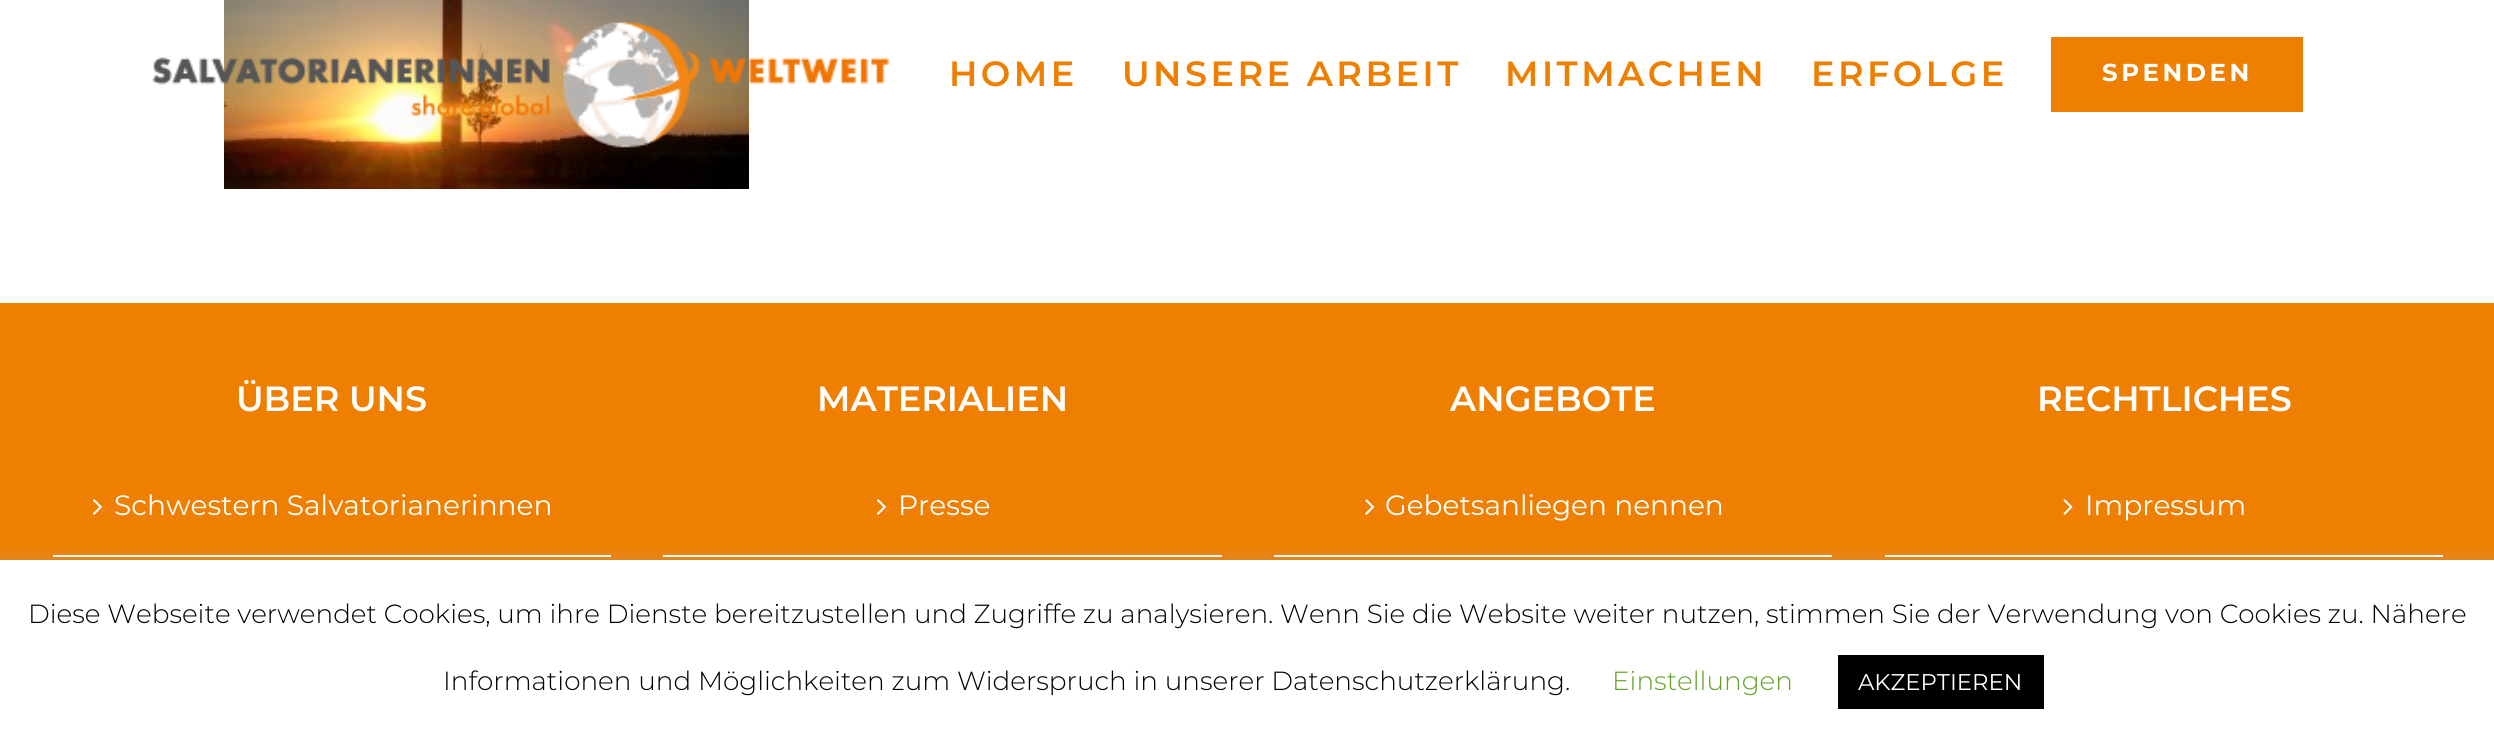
#include <cairo.h>
#include <math.h>
#include <stddef.h>


static void spaced_text(cairo_t *cr, double x, double y, const char *s, double letter, double word) {
    cairo_move_to(cr, x, y);
    while (*s) {
        char ch[5] = {0};
        int n = 0;
        do ch[n++] = *s++; while ((*s & 0xC0) == 0x80);
        cairo_show_text(cr, ch);
        cairo_rel_move_to(cr, letter + word * (*ch == ' '), 0);
    }
}

static void round_rect(cairo_t *cr, double x, double y, double w, double h, double r) {
    cairo_new_sub_path(cr);
    cairo_arc(cr, x + w - r, y + h - r, r, 0, M_PI / 2);
    cairo_arc(cr, x + r, y + h - r, r, M_PI / 2, M_PI);
    cairo_arc(cr, x + r, y + r, r, M_PI, 1.5 * M_PI);
    cairo_arc(cr, x + w - r, y + r, r, 1.5 * M_PI, 2 * M_PI);
    cairo_close_path(cr);
}

static void shadow(cairo_t *cr, double x, double y, double w, double h, double r, double blur, double alpha) {
    cairo_push_group_with_content(cr, CAIRO_CONTENT_ALPHA);
    cairo_set_operator(cr, CAIRO_OPERATOR_SOURCE);
    for (int i = 15; i >= -15 && fmin(w, h) + blur * i / 3 > 0; i -= 2) {
        double e = blur * i / 6;
        cairo_set_source_rgba(cr, 0, 0, 0, alpha * erfc((i - 1) / 8.5) / 2);
        round_rect(cr, x - e, y - e, w + 2 * e, h + 2 * e, fmax(0, fmin(r + e + blur * .6, fmin(w, h) / 2 + e)));
        cairo_fill(cr);
    }
    cairo_pattern_t *soft = cairo_pop_group(cr);
    cairo_mask(cr, soft);
    cairo_pattern_destroy(soft);
}

static void picture(cairo_t *cr, const char *path, double x, double y, double w, double h) {
    cairo_surface_t *image = cairo_image_surface_create_from_png(path);
    cairo_save(cr);
    cairo_set_source_surface(cr, image, x, y);
    cairo_rectangle(cr, x, y, w, h);
    cairo_fill(cr);
    cairo_restore(cr);
    cairo_surface_destroy(image);
}

int main(void) {
    cairo_surface_t *surface = cairo_image_surface_create(CAIRO_FORMAT_RGB24, 2494, 738);
    cairo_t *cr = cairo_create(surface);
    cairo_font_options_t *options = cairo_font_options_create();
    cairo_font_options_set_hint_metrics(options, CAIRO_HINT_METRICS_OFF);
    cairo_font_options_set_hint_style(options, CAIRO_HINT_STYLE_NONE);
    cairo_set_font_options(cr, options);
    cairo_set_miter_limit(cr, 4);
    cairo_set_source_rgb(cr, 1, 1, 1);
    cairo_paint(cr);
    picture(cr, "img1.png", 224, 0, 525, 189);
    picture(cr, "img2.png", 152, 20, 738, 128);
    cairo_select_font_face(cr, "Montserrat SemiBold", CAIRO_FONT_SLANT_NORMAL, CAIRO_FONT_WEIGHT_NORMAL);
    cairo_set_font_size(cr, 35);
    cairo_set_source_rgb(cr, 0.933, 0.498, 0);
    spaced_text(cr, 949, 86, "HOME", 3.5, 0);
    spaced_text(cr, 1122, 86, "UNSERE ARBEIT", 3.5, 0);
    spaced_text(cr, 1505, 86, "MITMACHEN", 3.5, 0);
    spaced_text(cr, 1811, 86, "ERFOLGE", 3.5, 0);
    cairo_rectangle(cr, 2051, 37, 252, 75);
    cairo_fill(cr);
    cairo_select_font_face(cr, "Montserrat", CAIRO_FONT_SLANT_NORMAL, CAIRO_FONT_WEIGHT_BOLD);
    cairo_set_font_size(cr, 24.5);
    cairo_set_source_rgb(cr, 1, 1, 1);
    spaced_text(cr, 2102, 81, "SPENDEN", 3.5, 0);
    cairo_set_source_rgb(cr, 0.933, 0.498, 0);
    cairo_rectangle(cr, 0, 303, 2494, 257);
    cairo_fill(cr);
    cairo_select_font_face(cr, "Montserrat SemiBold", CAIRO_FONT_SLANT_NORMAL, CAIRO_FONT_WEIGHT_NORMAL);
    cairo_set_font_size(cr, 35);
    cairo_set_source_rgb(cr, 1, 1, 1);
    cairo_move_to(cr, 236, 411);
    cairo_show_text(cr, "ÜBER UNS");
    cairo_rectangle(cr, 53, 555, 558, 2);
    cairo_fill(cr);
    picture(cr, "img3.png", 93, 499, 9, 16);
    cairo_select_font_face(cr, "Montserrat", CAIRO_FONT_SLANT_NORMAL, CAIRO_FONT_WEIGHT_NORMAL);
    cairo_set_font_size(cr, 28);
    cairo_move_to(cr, 114, 515);
    cairo_show_text(cr, "Schwestern Salvatorianerinnen");
    cairo_select_font_face(cr, "Montserrat SemiBold", CAIRO_FONT_SLANT_NORMAL, CAIRO_FONT_WEIGHT_NORMAL);
    cairo_set_font_size(cr, 35);
    cairo_move_to(cr, 817, 411);
    cairo_show_text(cr, "MATERIALIEN");
    cairo_rectangle(cr, 663, 555, 559, 2);
    cairo_fill(cr);
    picture(cr, "img3.png", 877, 499, 9, 16);
    cairo_select_font_face(cr, "Montserrat", CAIRO_FONT_SLANT_NORMAL, CAIRO_FONT_WEIGHT_NORMAL);
    cairo_set_font_size(cr, 28);
    cairo_move_to(cr, 898, 515);
    cairo_show_text(cr, "Presse");
    cairo_select_font_face(cr, "Montserrat SemiBold", CAIRO_FONT_SLANT_NORMAL, CAIRO_FONT_WEIGHT_NORMAL);
    cairo_set_font_size(cr, 35);
    cairo_move_to(cr, 1450, 411);
    cairo_show_text(cr, "ANGEBOTE");
    cairo_rectangle(cr, 1274, 555, 558, 2);
    cairo_fill(cr);
    picture(cr, "img4.png", 1365, 499, 10, 16);
    cairo_select_font_face(cr, "Montserrat", CAIRO_FONT_SLANT_NORMAL, CAIRO_FONT_WEIGHT_NORMAL);
    cairo_set_font_size(cr, 28);
    cairo_move_to(cr, 1385, 515);
    cairo_show_text(cr, "Gebetsanliegen nennen");
    cairo_select_font_face(cr, "Montserrat SemiBold", CAIRO_FONT_SLANT_NORMAL, CAIRO_FONT_WEIGHT_NORMAL);
    cairo_set_font_size(cr, 35);
    cairo_move_to(cr, 2037, 411);
    cairo_show_text(cr, "RECHTLICHES");
    cairo_rectangle(cr, 1885, 555, 558, 2);
    cairo_fill(cr);
    picture(cr, "img5.png", 2063, 499, 10, 16);
    cairo_select_font_face(cr, "Montserrat", CAIRO_FONT_SLANT_NORMAL, CAIRO_FONT_WEIGHT_NORMAL);
    cairo_set_font_size(cr, 28);
    cairo_move_to(cr, 2085, 515);
    cairo_show_text(cr, "Impressum");
    cairo_set_source_rgb(cr, 0.675, 0.671, 0.671);
    shadow(cr, 0, 558, 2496, 179, 0, 9, 0.3);
    cairo_set_source_rgb(cr, 1, 1, 1);
    cairo_rectangle(cr, 0, 560, 2494, 178);
    cairo_fill(cr);
    cairo_select_font_face(cr, "Montserrat Light", CAIRO_FONT_SLANT_NORMAL, CAIRO_FONT_WEIGHT_NORMAL);
    cairo_set_font_size(cr, 26.25);
    cairo_set_source_rgb(cr, 0, 0, 0);
    cairo_move_to(cr, 28, 623);
    cairo_show_text(cr, "Diese Webseite verwendet Cookies, um ihre Dienste bereitzustellen und Zugriffe zu analysieren. Wenn Sie die Website weiter nutzen, stimmen Sie der Verwendung von Cookies zu. Nähere");
    cairo_move_to(cr, 443, 690);
    cairo_show_text(cr, "Informationen und Möglichkeiten zum Widerspruch in unserer Datenschutzerklärung.");
    cairo_set_source_rgb(cr, 0.384, 0.639, 0.161);
    cairo_move_to(cr, 1612, 690);
    cairo_show_text(cr, "Einstellungen");
    cairo_set_source_rgb(cr, 0, 0, 0);
    cairo_rectangle(cr, 1838, 655, 206, 54);
    cairo_fill(cr);
    cairo_select_font_face(cr, "Montserrat", CAIRO_FONT_SLANT_NORMAL, CAIRO_FONT_WEIGHT_NORMAL);
    cairo_set_font_size(cr, 22.75);
    cairo_set_source_rgb(cr, 1, 1, 1);
    cairo_move_to(cr, 1858, 690);
    cairo_show_text(cr, "AKZEPTIEREN");
    cairo_surface_write_to_png(surface, "page.png");
    cairo_font_options_destroy(options);
    cairo_destroy(cr);
    cairo_surface_destroy(surface);
    return 0;
}
